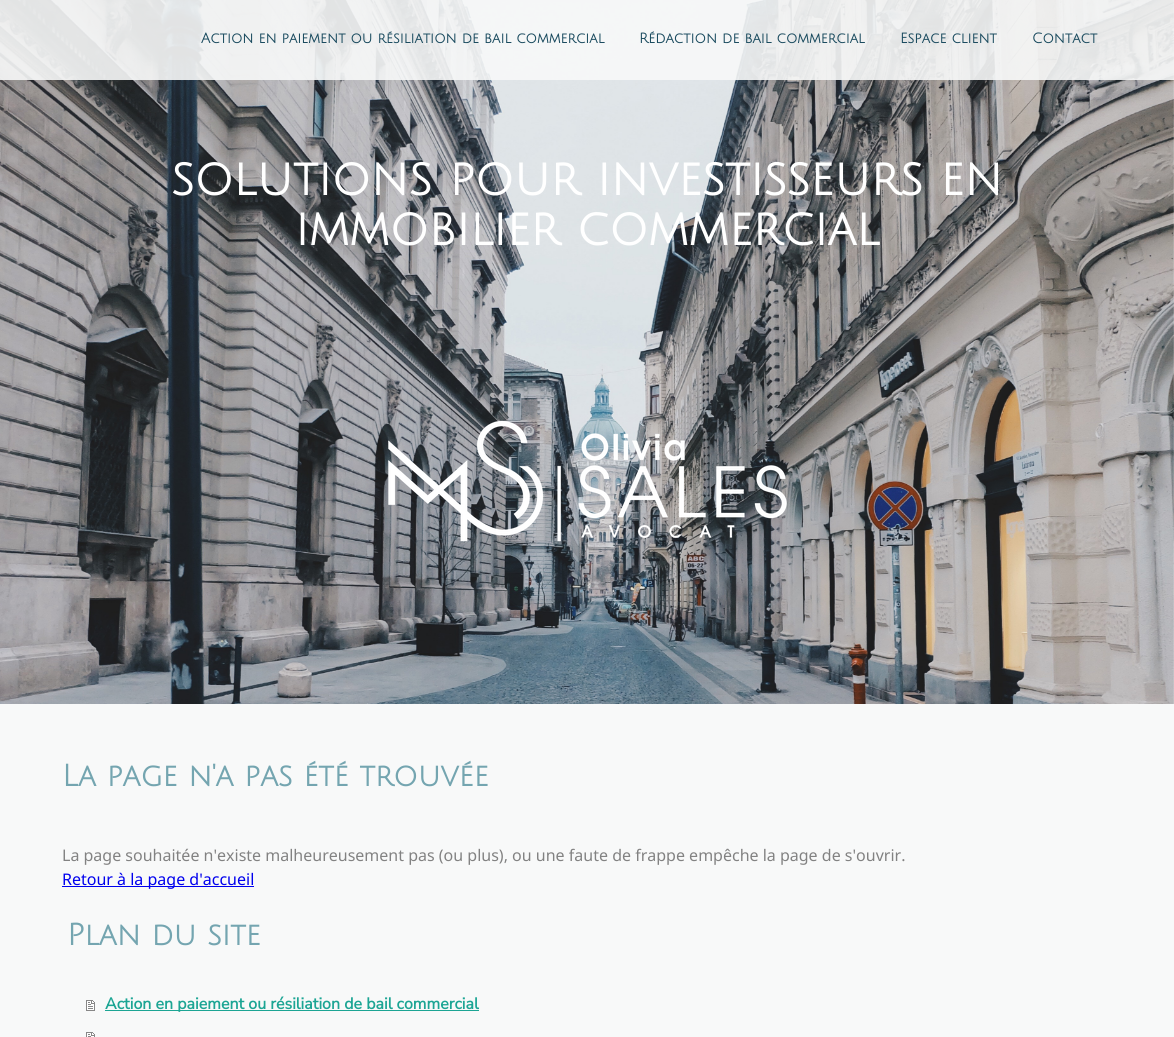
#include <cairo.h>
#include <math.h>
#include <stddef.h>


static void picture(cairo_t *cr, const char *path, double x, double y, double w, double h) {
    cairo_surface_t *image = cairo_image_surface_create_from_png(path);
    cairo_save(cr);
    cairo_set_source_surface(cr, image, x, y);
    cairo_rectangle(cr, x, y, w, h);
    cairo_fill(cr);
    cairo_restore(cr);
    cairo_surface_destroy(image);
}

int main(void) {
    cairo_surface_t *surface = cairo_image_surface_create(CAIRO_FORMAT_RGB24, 1174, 1037);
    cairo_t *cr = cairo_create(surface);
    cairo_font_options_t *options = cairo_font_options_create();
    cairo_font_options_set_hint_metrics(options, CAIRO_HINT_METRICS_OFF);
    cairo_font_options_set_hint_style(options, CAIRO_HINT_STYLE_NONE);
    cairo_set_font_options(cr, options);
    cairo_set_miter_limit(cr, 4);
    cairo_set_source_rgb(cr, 1, 1, 1);
    cairo_paint(cr);
    picture(cr, "img1.png", 0, 0, 1174, 704);
    cairo_set_source_rgba(cr, 0.969, 0.973, 0.973, 0.9);
    cairo_rectangle(cr, 0, 0, 1174, 80);
    cairo_fill(cr);
    cairo_select_font_face(cr, "Julius Sans One", CAIRO_FONT_SLANT_NORMAL, CAIRO_FONT_WEIGHT_BOLD);
    cairo_set_font_size(cr, 14);
    cairo_set_source_rgb(cr, 0.098, 0.29, 0.369);
    cairo_move_to(cr, 201, 43);
    cairo_show_text(cr, "Action en paiement ou résiliation de bail commercial");
    cairo_move_to(cr, 639, 43);
    cairo_show_text(cr, "Rédaction de bail commercial");
    cairo_move_to(cr, 900, 43);
    cairo_show_text(cr, "Espace client");
    cairo_move_to(cr, 1032, 43);
    cairo_show_text(cr, "Contact");
    cairo_set_font_size(cr, 48);
    cairo_set_source_rgb(cr, 1, 1, 1);
    cairo_move_to(cr, 171, 195);
    cairo_show_text(cr, "solutions pour investisseurs en");
    cairo_move_to(cr, 295, 245);
    cairo_show_text(cr, "immobilier commercial");
    picture(cr, "img2.png", 388, 420, 399, 122);
    cairo_set_source_rgb(cr, 0.969, 0.973, 0.973);
    cairo_rectangle(cr, 0, 704, 1174, 333);
    cairo_fill(cr);
    cairo_set_font_size(cr, 30);
    cairo_set_source_rgb(cr, 0.455, 0.647, 0.69);
    cairo_move_to(cr, 62, 786);
    cairo_show_text(cr, "La page n'a pas été trouvée");
    cairo_select_font_face(cr, "Noto Sans", CAIRO_FONT_SLANT_NORMAL, CAIRO_FONT_WEIGHT_NORMAL);
    cairo_set_font_size(cr, 16);
    cairo_set_source_rgb(cr, 0.51, 0.51, 0.51);
    cairo_move_to(cr, 62, 861);
    cairo_show_text(cr, "La page souhaitée n'existe malheureusement pas (ou plus), ou une faute de frappe empêche la page de s'ouvrir.");
    cairo_set_source_rgb(cr, 0, 0, 0.933);
    cairo_rectangle(cr, 62, 886, 192, 1);
    cairo_fill(cr);
    cairo_move_to(cr, 62, 885);
    cairo_show_text(cr, "Retour à la page d'accueil");
    cairo_select_font_face(cr, "Julius Sans One", CAIRO_FONT_SLANT_NORMAL, CAIRO_FONT_WEIGHT_BOLD);
    cairo_set_font_size(cr, 30);
    cairo_set_source_rgb(cr, 0.455, 0.647, 0.69);
    cairo_move_to(cr, 67, 945);
    cairo_show_text(cr, "Plan du site");
    picture(cr, "img3.png", 86, 1000, 9, 11);
    cairo_set_source_rgb(cr, 0.11, 0.647, 0.58);
    cairo_rectangle(cr, 105, 1010, 374, 1);
    cairo_fill(cr);
    cairo_select_font_face(cr, "Nunito Sans", CAIRO_FONT_SLANT_NORMAL, CAIRO_FONT_WEIGHT_BOLD);
    cairo_set_font_size(cr, 16);
    cairo_move_to(cr, 105, 1009);
    cairo_show_text(cr, "Action en paiement ou résiliation de bail commercial");
    picture(cr, "img4.png", 86, 1032, 9, 5);
    cairo_surface_write_to_png(surface, "page.png");
    cairo_font_options_destroy(options);
    cairo_destroy(cr);
    cairo_surface_destroy(surface);
    return 0;
}
